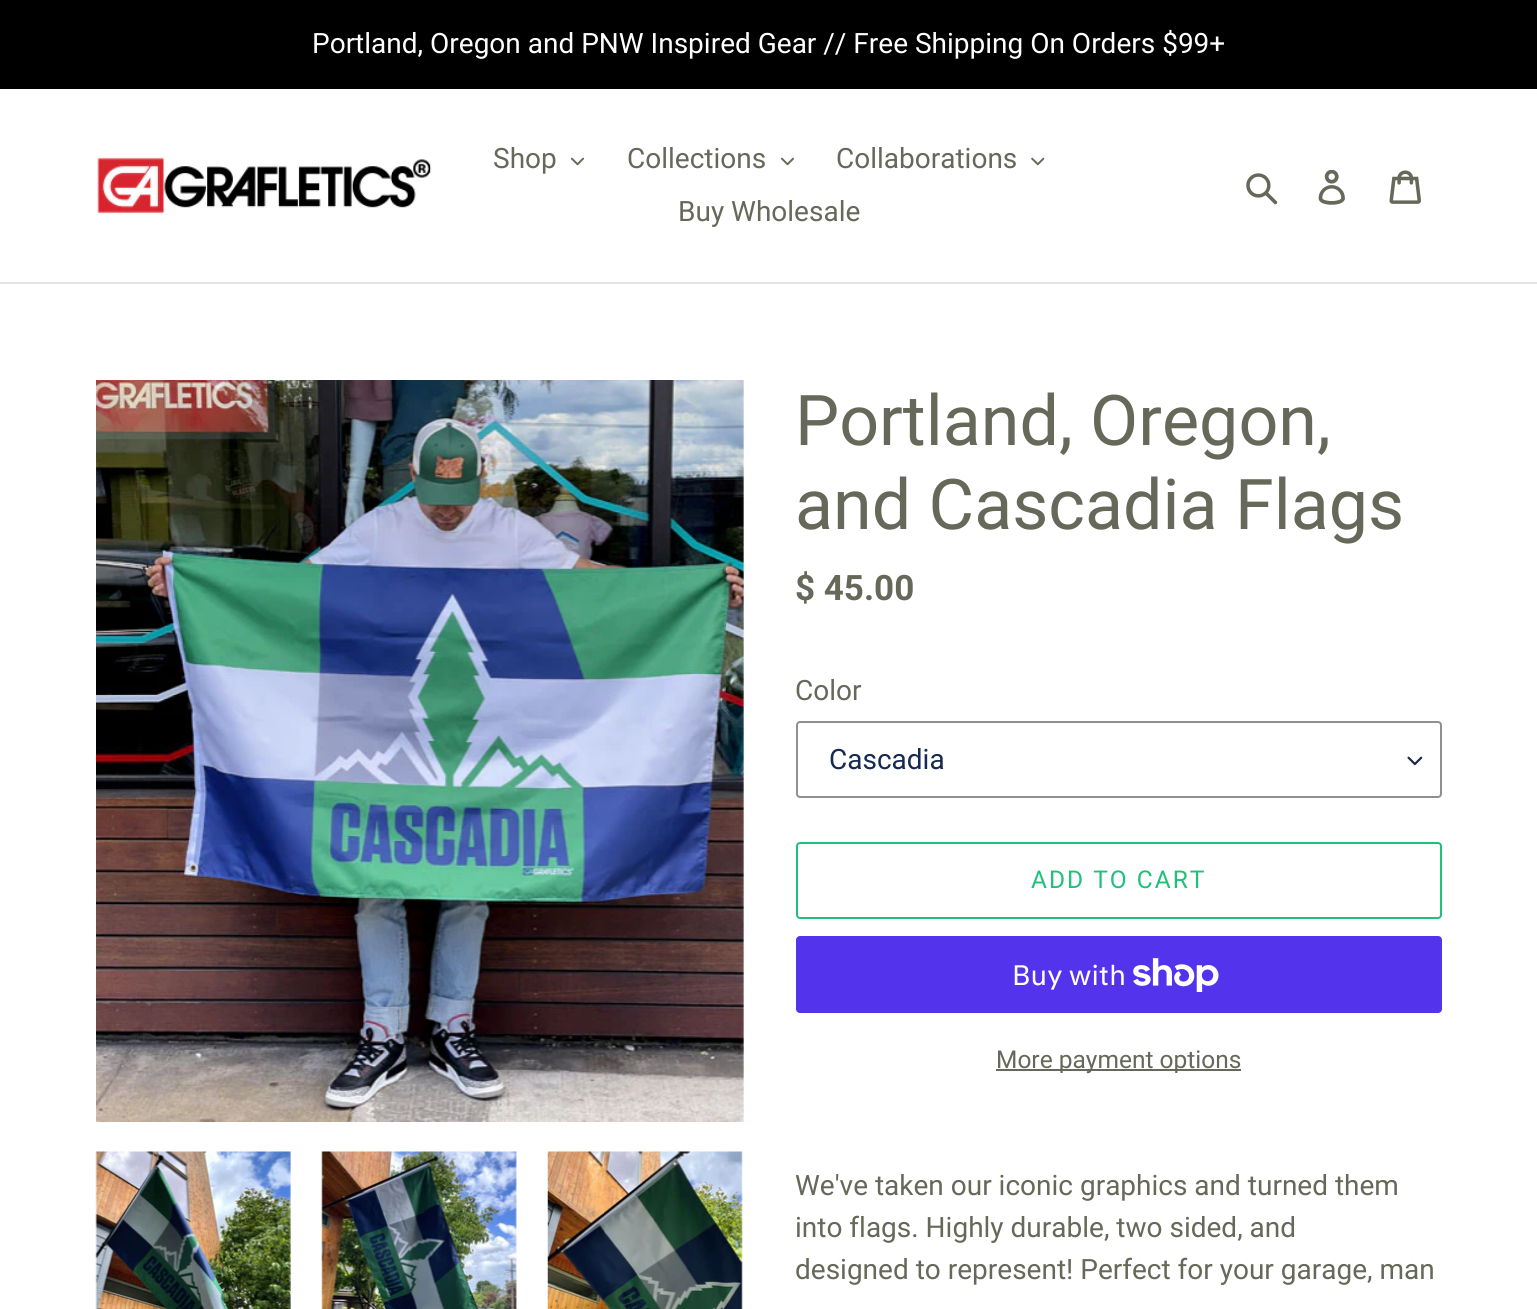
#include <cairo.h>
#include <math.h>
#include <stddef.h>


static void spaced_text(cairo_t *cr, double x, double y, const char *s, double letter, double word) {
    cairo_move_to(cr, x, y);
    while (*s) {
        char ch[5] = {0};
        int n = 0;
        do ch[n++] = *s++; while ((*s & 0xC0) == 0x80);
        cairo_show_text(cr, ch);
        cairo_rel_move_to(cr, letter + word * (*ch == ' '), 0);
    }
}

static void round_rect(cairo_t *cr, double x, double y, double w, double h, double r) {
    cairo_new_sub_path(cr);
    cairo_arc(cr, x + w - r, y + h - r, r, 0, M_PI / 2);
    cairo_arc(cr, x + r, y + h - r, r, M_PI / 2, M_PI);
    cairo_arc(cr, x + r, y + r, r, M_PI, 1.5 * M_PI);
    cairo_arc(cr, x + w - r, y + r, r, 1.5 * M_PI, 2 * M_PI);
    cairo_close_path(cr);
}

static void picture(cairo_t *cr, const char *path, double x, double y, double w, double h) {
    cairo_surface_t *image = cairo_image_surface_create_from_png(path);
    cairo_save(cr);
    cairo_set_source_surface(cr, image, x, y);
    cairo_rectangle(cr, x, y, w, h);
    cairo_fill(cr);
    cairo_restore(cr);
    cairo_surface_destroy(image);
}

int main(void) {
    cairo_surface_t *surface = cairo_image_surface_create(CAIRO_FORMAT_RGB24, 1537, 1309);
    cairo_t *cr = cairo_create(surface);
    cairo_font_options_t *options = cairo_font_options_create();
    cairo_font_options_set_hint_metrics(options, CAIRO_HINT_METRICS_OFF);
    cairo_font_options_set_hint_style(options, CAIRO_HINT_STYLE_NONE);
    cairo_set_font_options(cr, options);
    cairo_set_miter_limit(cr, 4);
    cairo_set_source_rgb(cr, 1, 1, 1);
    cairo_paint(cr);
    cairo_set_source_rgb(cr, 0, 0, 0);
    cairo_rectangle(cr, 0, 0, 1537, 89);
    cairo_fill(cr);
    cairo_select_font_face(cr, "Roboto", CAIRO_FONT_SLANT_NORMAL, CAIRO_FONT_WEIGHT_NORMAL);
    cairo_set_font_size(cr, 28);
    cairo_set_source_rgb(cr, 1, 1, 1);
    cairo_move_to(cr, 312, 53);
    cairo_show_text(cr, "Portland, Oregon and PNW Inspired Gear // Free Shipping On Orders $99+");
    cairo_set_source_rgb(cr, 0.894, 0.894, 0.894);
    cairo_rectangle(cr, 0, 282, 1537, 2);
    cairo_fill(cr);
    picture(cr, "img1.png", 96, 156, 336, 59);
    cairo_set_source_rgb(cr, 0.4, 0.408, 0.353);
    cairo_move_to(cr, 493, 168);
    cairo_show_text(cr, "Shop");
    picture(cr, "img2.png", 571, 157, 13, 9);
    cairo_move_to(cr, 627, 168);
    cairo_show_text(cr, "Collections");
    picture(cr, "img2.png", 781, 157, 13, 9);
    cairo_move_to(cr, 836, 168);
    cairo_show_text(cr, "Collaborations");
    picture(cr, "img3.png", 1031, 157, 14, 9);
    cairo_move_to(cr, 678, 221);
    cairo_show_text(cr, "Buy Wholesale");
    picture(cr, "img4.png", 1246, 173, 32, 32);
    picture(cr, "img5.png", 1318, 170, 27, 35);
    picture(cr, "img6.png", 1389, 170, 32, 34);
    picture(cr, "img7.png", 96, 380, 648, 742);
    picture(cr, "img8.png", 95, 1151, 196, 158);
    picture(cr, "img9.png", 321, 1151, 196, 158);
    picture(cr, "img10.png", 547, 1151, 196, 158);
    cairo_set_font_size(cr, 70);
    cairo_move_to(cr, 795, 445);
    cairo_show_text(cr, "Portland, Oregon,");
    cairo_move_to(cr, 795, 529);
    cairo_show_text(cr, "and Cascadia Flags");
    cairo_select_font_face(cr, "Roboto", CAIRO_FONT_SLANT_NORMAL, CAIRO_FONT_WEIGHT_BOLD);
    cairo_set_font_size(cr, 35);
    cairo_move_to(cr, 795, 600);
    cairo_show_text(cr, "$ 45.00");
    cairo_select_font_face(cr, "Roboto", CAIRO_FONT_SLANT_NORMAL, CAIRO_FONT_WEIGHT_NORMAL);
    cairo_set_font_size(cr, 28);
    cairo_move_to(cr, 795, 700);
    cairo_show_text(cr, "Color");
    picture(cr, "img11.png", 1407, 756, 16, 10);
    round_rect(cr, 797, 722, 644, 75, 3);
    cairo_set_source_rgb(cr, 0.565, 0.565, 0.565);
    cairo_stroke(cr);
    cairo_set_source_rgb(cr, 0.086, 0.161, 0.314);
    cairo_move_to(cr, 829, 769);
    cairo_show_text(cr, "Cascadia");
    round_rect(cr, 797, 843, 644, 75, 3);
    cairo_set_source_rgb(cr, 0.118, 0.757, 0.475);
    cairo_stroke(cr);
    cairo_set_font_size(cr, 24.5);
    spaced_text(cr, 1031, 888, "ADD TO CART", 2, 0);
    cairo_set_source_rgb(cr, 0.329, 0.2, 0.922);
    round_rect(cr, 796, 936, 646, 77, 4);
    cairo_fill(cr);
    cairo_select_font_face(cr, "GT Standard", CAIRO_FONT_SLANT_NORMAL, CAIRO_FONT_WEIGHT_NORMAL);
    cairo_set_font_size(cr, 28);
    cairo_set_source_rgb(cr, 1, 1, 1);
    cairo_move_to(cr, 1012, 985);
    cairo_show_text(cr, "Buy with");
    picture(cr, "img12.png", 1133, 958, 86, 34);
    cairo_set_source_rgb(cr, 0.4, 0.408, 0.353);
    cairo_rectangle(cr, 996, 1069, 245, 2);
    cairo_fill(cr);
    cairo_select_font_face(cr, "Roboto", CAIRO_FONT_SLANT_NORMAL, CAIRO_FONT_WEIGHT_NORMAL);
    cairo_set_font_size(cr, 24.5);
    cairo_move_to(cr, 996, 1068);
    cairo_show_text(cr, "More payment options");
    cairo_set_font_size(cr, 28);
    cairo_move_to(cr, 795, 1195);
    cairo_show_text(cr, "We've taken our iconic graphics and turned them");
    cairo_move_to(cr, 795, 1237);
    cairo_show_text(cr, "into flags. Highly durable, two sided, and");
    cairo_move_to(cr, 795, 1279);
    cairo_show_text(cr, "designed to represent! Perfect for your garage, man");
    cairo_surface_write_to_png(surface, "page.png");
    cairo_font_options_destroy(options);
    cairo_destroy(cr);
    cairo_surface_destroy(surface);
    return 0;
}
